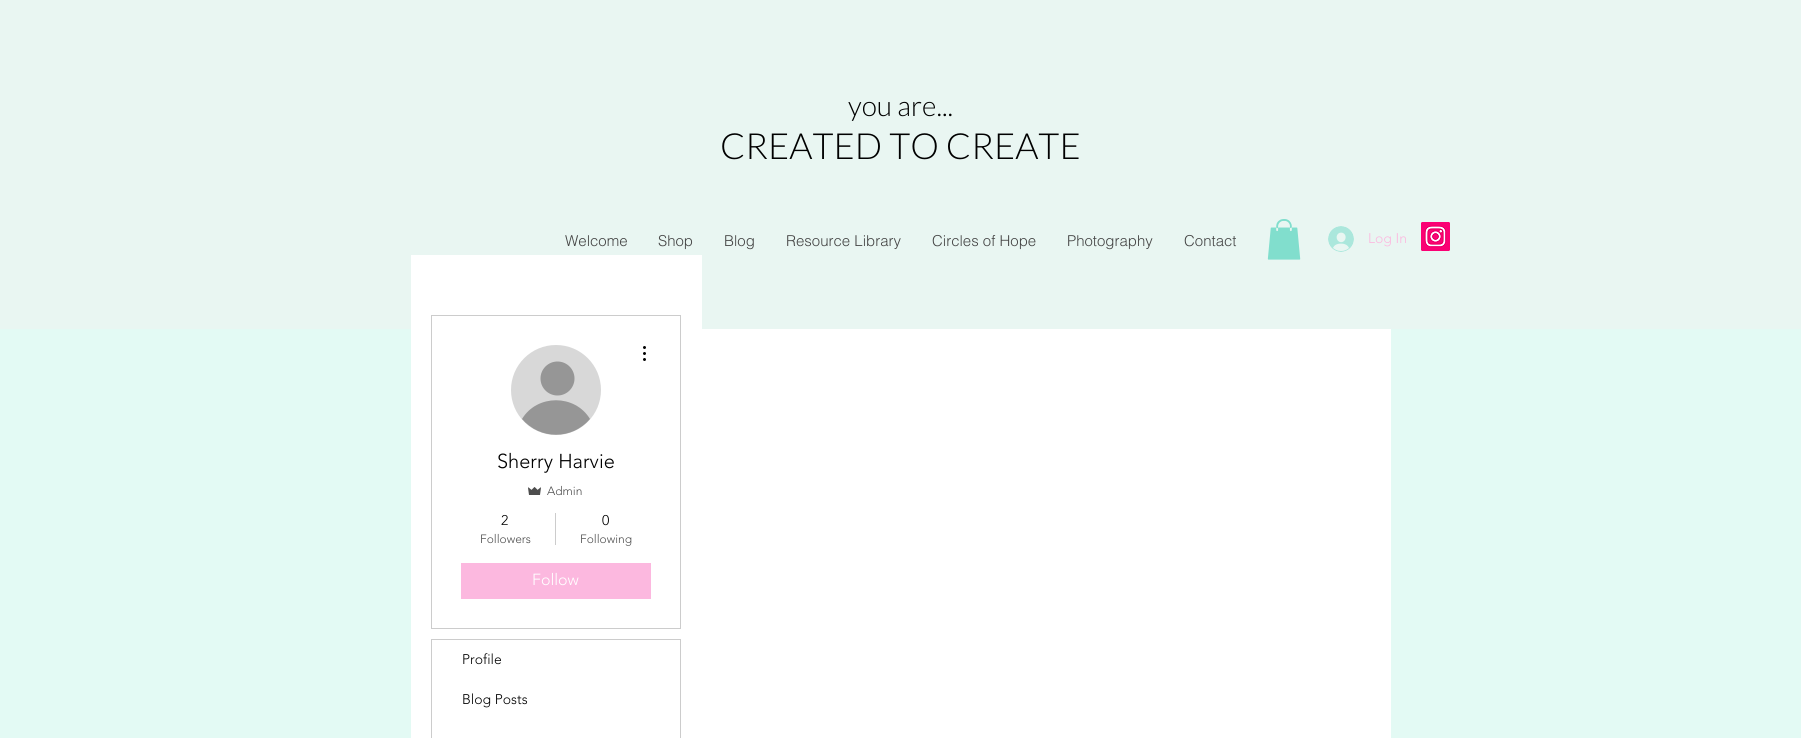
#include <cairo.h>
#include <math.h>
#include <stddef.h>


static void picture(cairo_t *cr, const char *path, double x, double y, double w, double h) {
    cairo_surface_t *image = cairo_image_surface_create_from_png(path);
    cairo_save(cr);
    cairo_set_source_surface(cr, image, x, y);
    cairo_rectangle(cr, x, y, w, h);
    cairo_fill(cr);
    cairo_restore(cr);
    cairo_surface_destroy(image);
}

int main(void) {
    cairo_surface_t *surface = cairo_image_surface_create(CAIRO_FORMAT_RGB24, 1801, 738);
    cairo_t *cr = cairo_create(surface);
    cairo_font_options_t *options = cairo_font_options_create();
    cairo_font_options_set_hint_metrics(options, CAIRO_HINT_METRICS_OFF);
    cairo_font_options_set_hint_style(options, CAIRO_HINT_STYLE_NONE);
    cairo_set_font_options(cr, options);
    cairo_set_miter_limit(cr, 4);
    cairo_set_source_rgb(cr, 0.89, 0.98, 0.957);
    cairo_paint(cr);
    cairo_set_source_rgb(cr, 0.914, 0.961, 0.949);
    cairo_rectangle(cr, 0, 0, 1801, 329);
    cairo_fill(cr);
    cairo_select_font_face(cr, "Lato Light", CAIRO_FONT_SLANT_NORMAL, CAIRO_FONT_WEIGHT_NORMAL);
    cairo_set_font_size(cr, 28);
    cairo_set_source_rgb(cr, 0, 0, 0);
    cairo_move_to(cr, 848, 116);
    cairo_show_text(cr, "you are...");
    cairo_set_font_size(cr, 36);
    cairo_move_to(cr, 720, 159);
    cairo_show_text(cr, "CREATED TO CREATE");
    cairo_select_font_face(cr, "helvetica Light", CAIRO_FONT_SLANT_NORMAL, CAIRO_FONT_WEIGHT_NORMAL);
    cairo_set_font_size(cr, 15);
    cairo_set_source_rgb(cr, 0.267, 0.267, 0.267);
    cairo_move_to(cr, 565, 246);
    cairo_show_text(cr, "Welcome");
    cairo_move_to(cr, 658, 246);
    cairo_show_text(cr, "Shop");
    cairo_move_to(cr, 724, 246);
    cairo_show_text(cr, "Blog");
    cairo_move_to(cr, 786, 246);
    cairo_show_text(cr, "Resource Library");
    cairo_move_to(cr, 932, 246);
    cairo_show_text(cr, "Circles of Hope");
    cairo_move_to(cr, 1067, 246);
    cairo_show_text(cr, "Photography");
    cairo_move_to(cr, 1184, 246);
    cairo_show_text(cr, "Contact");
    picture(cr, "img1.png", 1267, 219, 34, 41);
    picture(cr, "img2.png", 1328, 226, 26, 26);
    cairo_select_font_face(cr, "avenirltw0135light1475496 Light", CAIRO_FONT_SLANT_NORMAL, CAIRO_FONT_WEIGHT_NORMAL);
    cairo_set_font_size(cr, 14);
    cairo_set_source_rgb(cr, 0.988, 0.722, 0.875);
    cairo_move_to(cr, 1368, 243);
    cairo_show_text(cr, "Log In");
    picture(cr, "img3.png", 1421, 222, 29, 29);
    cairo_set_source_rgb(cr, 1, 1, 1);
    cairo_rectangle(cr, 411, 255, 291, 483);
    cairo_fill(cr);
    cairo_rectangle(cr, 431.5, 315.5, 249, 313);
    cairo_set_source_rgb(cr, 0.8, 0.8, 0.8);
    cairo_set_line_width(cr, 1);
    cairo_stroke(cr);
    cairo_set_source_rgb(cr, 0.847, 0.847, 0.847);
    cairo_arc(cr, 556, 390, 45, 0, 2 * M_PI);
    cairo_fill(cr);
    cairo_set_source_rgb(cr, 0.588, 0.588, 0.588);
    cairo_arc(cr, 557.5, 378.5, 17, 0, 2 * M_PI);
    cairo_fill(cr);
    cairo_new_path(cr);
    cairo_move_to(cr, 590, 419);
    cairo_curve_to(cr, 572, 440, 540, 440, 522, 419);
    cairo_curve_to(cr, 537, 394, 575, 394, 590, 419);
    cairo_close_path(cr);
    cairo_fill(cr);
    picture(cr, "img4.png", 643, 346, 3, 15);
    cairo_set_font_size(cr, 20);
    cairo_set_source_rgb(cr, 0, 0, 0);
    cairo_move_to(cr, 497, 468);
    cairo_show_text(cr, "Sherry Harvie");
    picture(cr, "img5.png", 528, 487, 13, 8);
    cairo_set_font_size(cr, 12);
    cairo_set_source_rgb(cr, 0.302, 0.302, 0.302);
    cairo_move_to(cr, 547, 495);
    cairo_show_text(cr, "Admin");
    cairo_set_font_size(cr, 14);
    cairo_set_source_rgb(cr, 0, 0, 0);
    cairo_move_to(cr, 501, 525);
    cairo_show_text(cr, "2");
    cairo_set_font_size(cr, 12);
    cairo_set_source_rgb(cr, 0.302, 0.302, 0.302);
    cairo_move_to(cr, 480, 543);
    cairo_show_text(cr, "Followers");
    cairo_set_source_rgb(cr, 0.8, 0.8, 0.8);
    cairo_rectangle(cr, 555, 513, 1, 32);
    cairo_fill(cr);
    cairo_set_font_size(cr, 14);
    cairo_set_source_rgb(cr, 0, 0, 0);
    cairo_move_to(cr, 602, 525);
    cairo_show_text(cr, "0");
    cairo_set_font_size(cr, 12);
    cairo_set_source_rgb(cr, 0.302, 0.302, 0.302);
    cairo_move_to(cr, 580, 543);
    cairo_show_text(cr, "Following");
    cairo_set_source_rgb(cr, 0.988, 0.722, 0.875);
    cairo_rectangle(cr, 461, 563, 190, 36);
    cairo_fill(cr);
    cairo_set_font_size(cr, 16);
    cairo_set_source_rgb(cr, 1, 1, 1);
    cairo_move_to(cr, 532, 585);
    cairo_show_text(cr, "Follow");
    cairo_rectangle(cr, 431.5, 639.5, 249, 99);
    cairo_set_source_rgb(cr, 0.8, 0.8, 0.8);
    cairo_stroke(cr);
    cairo_set_font_size(cr, 14);
    cairo_set_source_rgb(cr, 0, 0, 0);
    cairo_move_to(cr, 462, 664);
    cairo_show_text(cr, "Profile");
    cairo_move_to(cr, 462, 704);
    cairo_show_text(cr, "Blog Posts");
    cairo_set_source_rgb(cr, 1, 1, 1);
    cairo_rectangle(cr, 702, 329, 689, 409);
    cairo_fill(cr);
    cairo_surface_write_to_png(surface, "page.png");
    cairo_font_options_destroy(options);
    cairo_destroy(cr);
    cairo_surface_destroy(surface);
    return 0;
}
